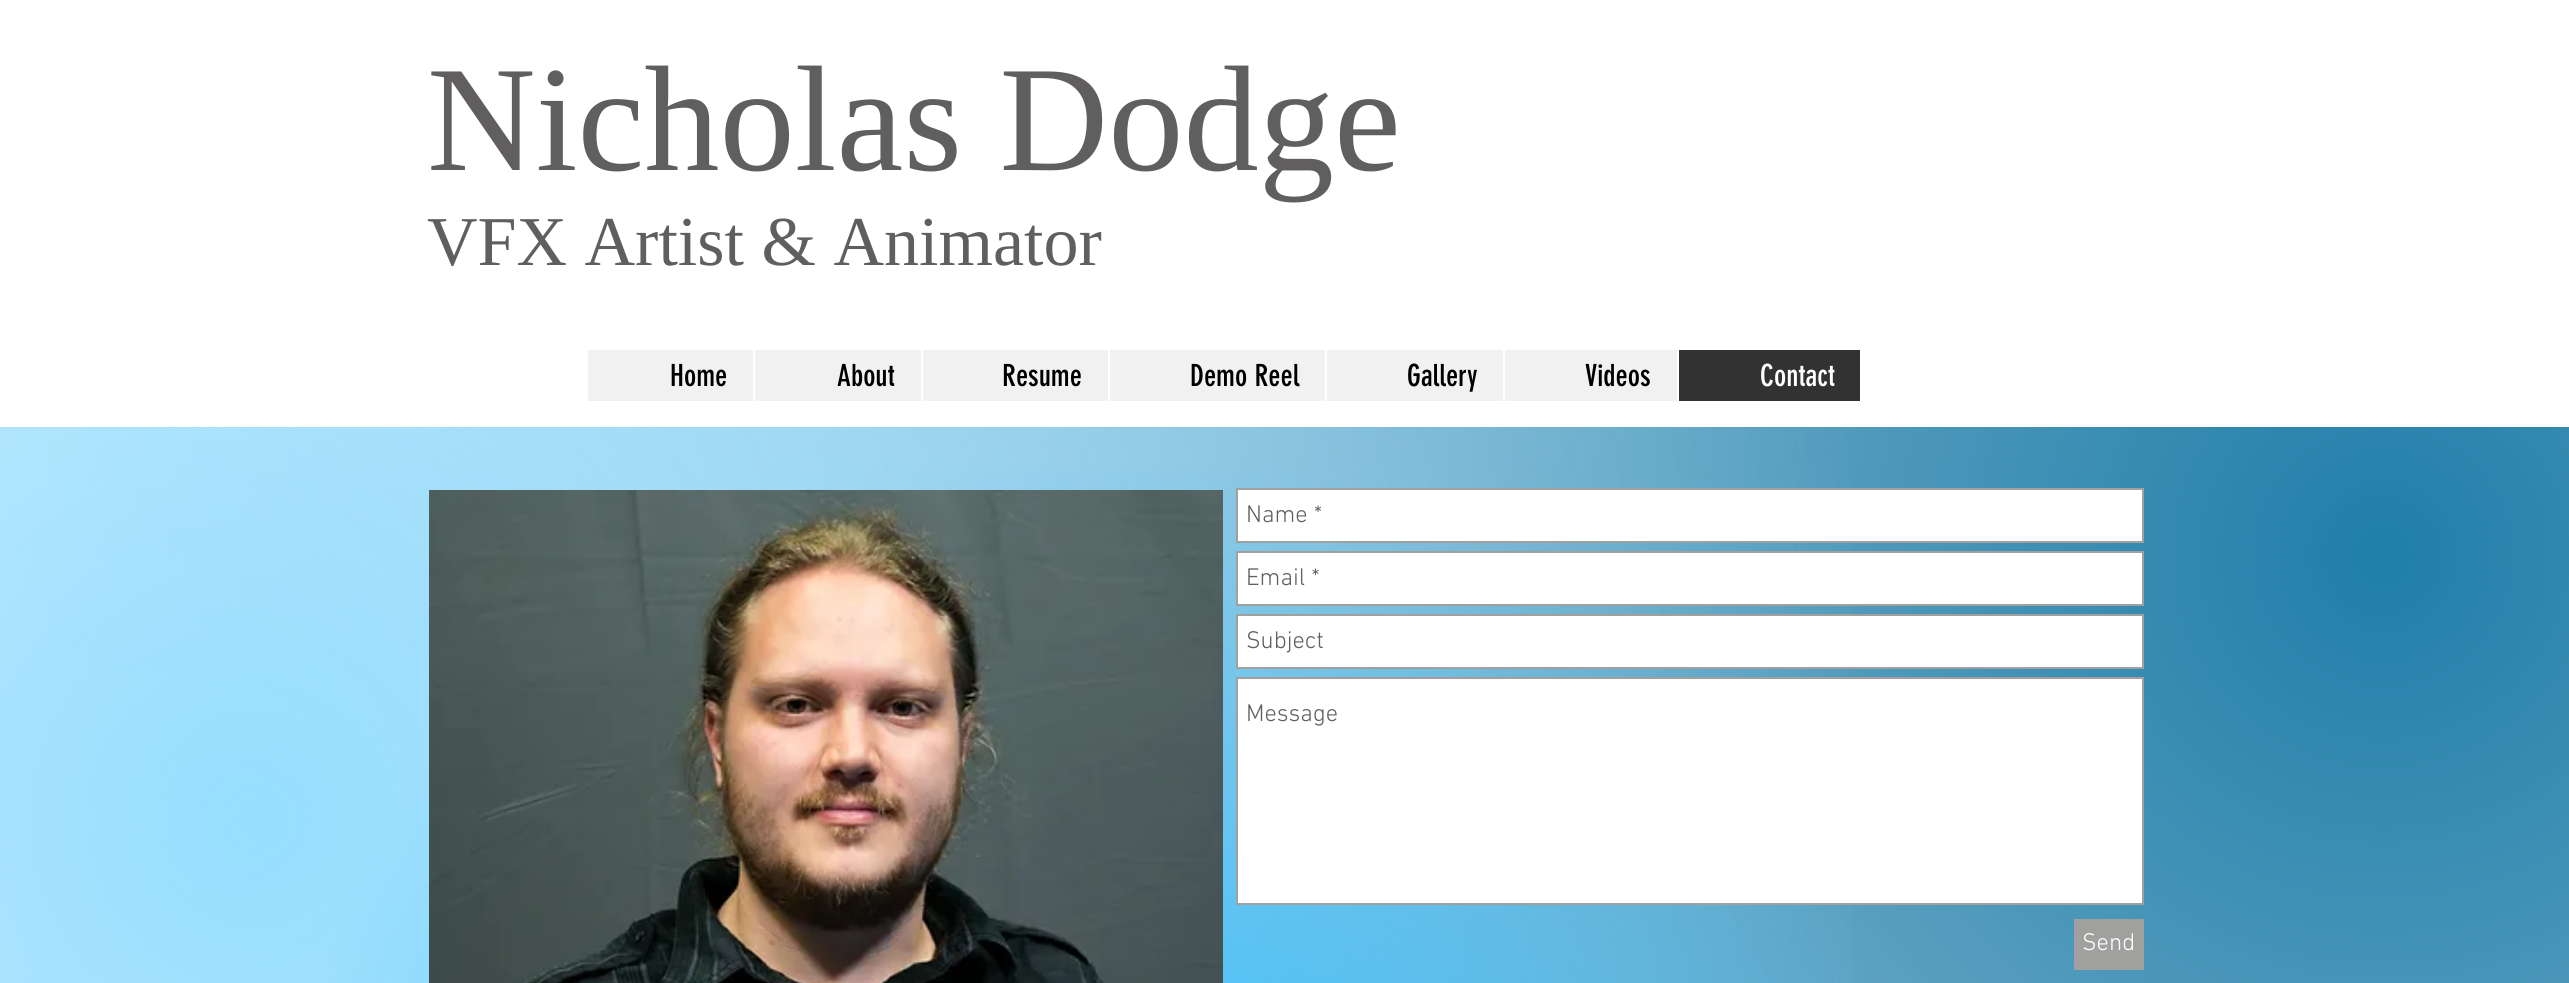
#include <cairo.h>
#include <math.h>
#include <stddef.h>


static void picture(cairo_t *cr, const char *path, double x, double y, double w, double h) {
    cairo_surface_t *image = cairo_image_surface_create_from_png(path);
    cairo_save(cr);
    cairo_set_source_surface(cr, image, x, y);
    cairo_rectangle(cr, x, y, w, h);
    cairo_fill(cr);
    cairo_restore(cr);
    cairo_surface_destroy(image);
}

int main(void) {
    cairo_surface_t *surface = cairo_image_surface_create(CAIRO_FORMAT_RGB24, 2569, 983);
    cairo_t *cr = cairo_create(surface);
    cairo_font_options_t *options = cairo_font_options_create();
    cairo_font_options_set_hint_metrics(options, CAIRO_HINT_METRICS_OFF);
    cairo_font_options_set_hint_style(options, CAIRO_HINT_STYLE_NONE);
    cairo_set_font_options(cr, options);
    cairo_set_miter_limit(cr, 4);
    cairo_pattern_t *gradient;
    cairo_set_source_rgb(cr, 1, 1, 1);
    cairo_paint(cr);
    cairo_select_font_face(cr, "Liberation Serif", CAIRO_FONT_SLANT_NORMAL, CAIRO_FONT_WEIGHT_NORMAL);
    cairo_set_font_size(cr, 150.5);
    cairo_set_source_rgb(cr, 0.376, 0.369, 0.369);
    cairo_move_to(cr, 427, 170);
    cairo_show_text(cr, "Nicholas Dodge");
    cairo_set_font_size(cr, 70);
    cairo_move_to(cr, 427, 265);
    cairo_show_text(cr, "VFX Artist & Animator");
    cairo_set_source_rgb(cr, 0.945, 0.945, 0.945);
    cairo_rectangle(cr, 588, 350, 1089, 51);
    cairo_fill(cr);
    cairo_select_font_face(cr, "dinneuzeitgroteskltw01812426", CAIRO_FONT_SLANT_NORMAL, CAIRO_FONT_WEIGHT_NORMAL);
    cairo_set_font_size(cr, 30);
    cairo_set_source_rgb(cr, 0, 0, 0);
    cairo_move_to(cr, 670, 386);
    cairo_show_text(cr, "Home");
    cairo_set_source_rgb(cr, 1, 1, 1);
    cairo_rectangle(cr, 753, 350, 2, 51);
    cairo_fill(cr);
    cairo_set_source_rgb(cr, 0, 0, 0);
    cairo_move_to(cr, 837, 386);
    cairo_show_text(cr, "About");
    cairo_set_source_rgb(cr, 1, 1, 1);
    cairo_rectangle(cr, 921, 350, 2, 51);
    cairo_fill(cr);
    cairo_set_source_rgb(cr, 0, 0, 0);
    cairo_move_to(cr, 1002, 386);
    cairo_show_text(cr, "Resume");
    cairo_set_source_rgb(cr, 1, 1, 1);
    cairo_rectangle(cr, 1108, 350, 2, 51);
    cairo_fill(cr);
    cairo_set_source_rgb(cr, 0, 0, 0);
    cairo_move_to(cr, 1190, 386);
    cairo_show_text(cr, "Demo Reel");
    cairo_set_source_rgb(cr, 1, 1, 1);
    cairo_rectangle(cr, 1325, 350, 2, 51);
    cairo_fill(cr);
    cairo_set_source_rgb(cr, 0, 0, 0);
    cairo_move_to(cr, 1407, 386);
    cairo_show_text(cr, "Gallery");
    cairo_set_source_rgb(cr, 1, 1, 1);
    cairo_rectangle(cr, 1503, 350, 2, 51);
    cairo_fill(cr);
    cairo_set_source_rgb(cr, 0, 0, 0);
    cairo_move_to(cr, 1585, 386);
    cairo_show_text(cr, "Videos");
    cairo_set_source_rgb(cr, 0.196, 0.196, 0.196);
    cairo_rectangle(cr, 1679, 350, 181, 51);
    cairo_fill(cr);
    cairo_set_source_rgb(cr, 1, 1, 1);
    cairo_move_to(cr, 1760, 386);
    cairo_show_text(cr, "Contact");
    gradient = cairo_pattern_create_radial(2383, 556, 0, 2383, 556, 2497);
    cairo_pattern_add_color_stop_rgba(gradient, 0, 0.125, 0.494, 0.663, 1);
    cairo_pattern_add_color_stop_rgba(gradient, 1, 1, 1, 1, 1);
    cairo_set_source(cr, gradient);
    cairo_pattern_destroy(gradient);
    cairo_rectangle(cr, 0, 427, 2569, 556);
    cairo_fill(cr);
    gradient = cairo_pattern_create_radial(256, 819, 0, 256, 819, 2363);
    cairo_pattern_add_color_stop_rgba(gradient, 0, 0.592, 0.871, 1, 1);
    cairo_pattern_add_color_stop_rgba(gradient, 0.7, 0.592, 0.871, 1, 0);
    cairo_set_source(cr, gradient);
    cairo_pattern_destroy(gradient);
    cairo_rectangle(cr, 0, 427, 1853, 556);
    cairo_fill(cr);
    gradient = cairo_pattern_create_radial(1104, 1302, 0, 1104, 1302, 1706);
    cairo_pattern_add_color_stop_rgba(gradient, 0, 0.188, 0.741, 1, 1);
    cairo_pattern_add_color_stop_rgba(gradient, 0.5, 0.188, 0.741, 1, 0);
    cairo_set_source(cr, gradient);
    cairo_pattern_destroy(gradient);
    cairo_rectangle(cr, 326, 468, 1538, 515);
    cairo_fill(cr);
    picture(cr, "img1.png", 429, 490, 794, 493);
    cairo_set_source_rgb(cr, 1, 1, 1);
    cairo_rectangle(cr, 1237, 489, 906, 53);
    cairo_fill_preserve(cr);
    cairo_set_source_rgb(cr, 0.627, 0.627, 0.624);
    cairo_stroke(cr);
    cairo_select_font_face(cr, "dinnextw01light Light", CAIRO_FONT_SLANT_NORMAL, CAIRO_FONT_WEIGHT_NORMAL);
    cairo_set_font_size(cr, 24.5);
    cairo_set_source_rgb(cr, 0.376, 0.369, 0.369);
    cairo_move_to(cr, 1246, 522);
    cairo_show_text(cr, "Name *");
    cairo_set_source_rgb(cr, 1, 1, 1);
    cairo_rectangle(cr, 1237, 552, 906, 53);
    cairo_fill_preserve(cr);
    cairo_set_source_rgb(cr, 0.627, 0.627, 0.624);
    cairo_stroke(cr);
    cairo_set_source_rgb(cr, 0.376, 0.369, 0.369);
    cairo_move_to(cr, 1246, 585);
    cairo_show_text(cr, "Email *");
    cairo_set_source_rgb(cr, 1, 1, 1);
    cairo_rectangle(cr, 1237, 615, 906, 53);
    cairo_fill_preserve(cr);
    cairo_set_source_rgb(cr, 0.627, 0.627, 0.624);
    cairo_stroke(cr);
    cairo_set_source_rgb(cr, 0.376, 0.369, 0.369);
    cairo_move_to(cr, 1246, 648);
    cairo_show_text(cr, "Subject");
    cairo_set_source_rgb(cr, 1, 1, 1);
    cairo_rectangle(cr, 1237, 678, 906, 226);
    cairo_fill_preserve(cr);
    cairo_set_source_rgb(cr, 0.627, 0.627, 0.624);
    cairo_stroke(cr);
    cairo_set_source_rgb(cr, 0.376, 0.369, 0.369);
    cairo_move_to(cr, 1246, 721);
    cairo_show_text(cr, "Message");
    cairo_set_source_rgb(cr, 0.627, 0.627, 0.624);
    cairo_rectangle(cr, 2074, 919, 70, 51);
    cairo_fill(cr);
    cairo_set_source_rgb(cr, 1, 1, 1);
    cairo_move_to(cr, 2082, 950);
    cairo_show_text(cr, "Send");
    cairo_surface_write_to_png(surface, "page.png");
    cairo_font_options_destroy(options);
    cairo_destroy(cr);
    cairo_surface_destroy(surface);
    return 0;
}
